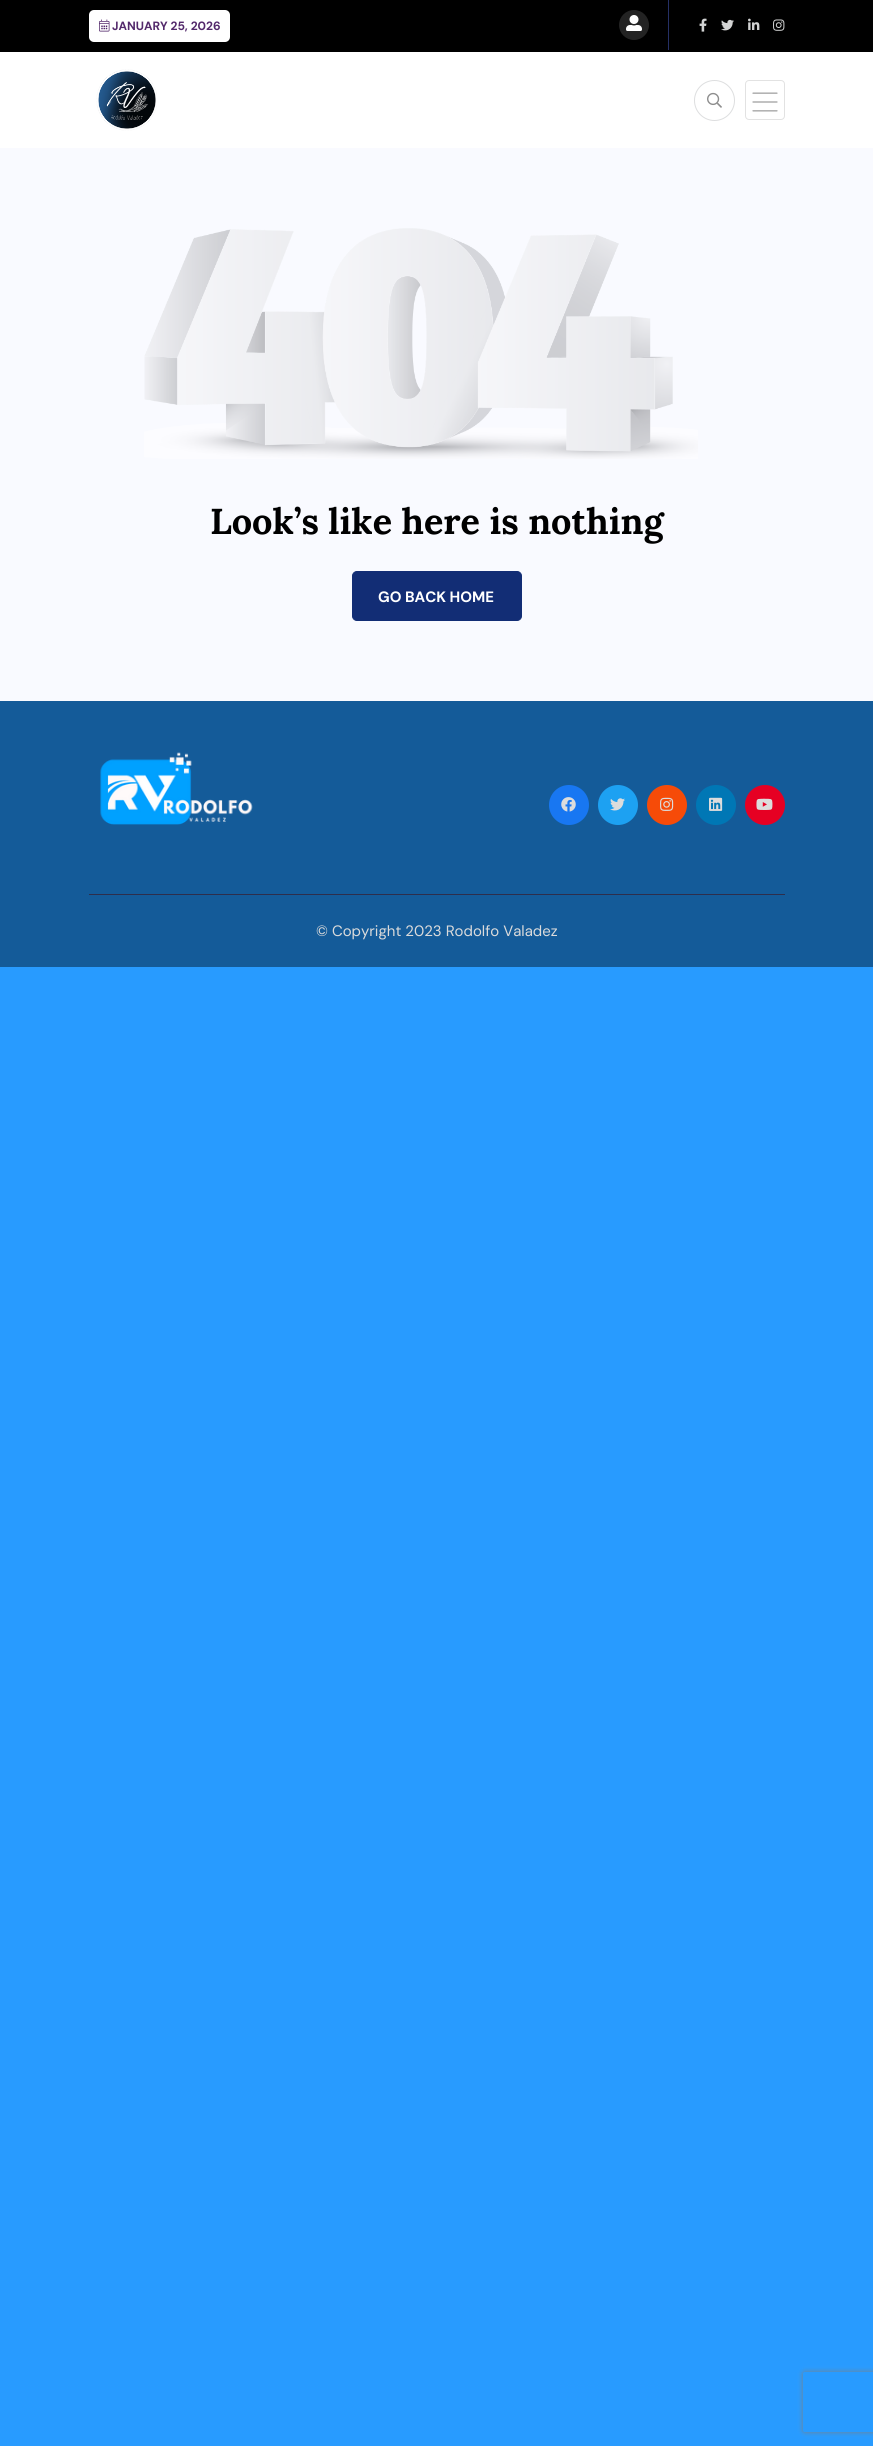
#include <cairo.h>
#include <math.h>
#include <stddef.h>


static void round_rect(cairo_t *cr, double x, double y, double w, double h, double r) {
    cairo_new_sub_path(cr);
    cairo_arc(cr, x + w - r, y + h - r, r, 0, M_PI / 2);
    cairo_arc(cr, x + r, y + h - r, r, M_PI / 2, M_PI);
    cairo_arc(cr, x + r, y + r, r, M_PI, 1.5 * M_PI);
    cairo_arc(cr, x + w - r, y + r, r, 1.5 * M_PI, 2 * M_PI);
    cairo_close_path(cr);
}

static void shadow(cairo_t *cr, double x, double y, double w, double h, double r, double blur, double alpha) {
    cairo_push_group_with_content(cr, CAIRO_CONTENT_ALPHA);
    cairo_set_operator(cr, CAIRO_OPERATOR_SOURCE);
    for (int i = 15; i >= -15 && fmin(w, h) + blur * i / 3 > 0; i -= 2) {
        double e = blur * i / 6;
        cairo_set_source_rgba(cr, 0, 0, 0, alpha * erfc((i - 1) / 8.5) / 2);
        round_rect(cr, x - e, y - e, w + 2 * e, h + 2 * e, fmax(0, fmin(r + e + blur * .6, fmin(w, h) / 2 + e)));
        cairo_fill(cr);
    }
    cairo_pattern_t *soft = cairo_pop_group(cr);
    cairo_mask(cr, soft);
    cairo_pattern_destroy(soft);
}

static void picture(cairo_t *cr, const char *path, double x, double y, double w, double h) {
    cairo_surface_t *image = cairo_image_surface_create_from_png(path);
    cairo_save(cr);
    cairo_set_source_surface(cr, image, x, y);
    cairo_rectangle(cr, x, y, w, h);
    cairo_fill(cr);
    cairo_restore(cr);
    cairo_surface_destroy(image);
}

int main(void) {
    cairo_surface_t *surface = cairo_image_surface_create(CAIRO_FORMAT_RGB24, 873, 2446);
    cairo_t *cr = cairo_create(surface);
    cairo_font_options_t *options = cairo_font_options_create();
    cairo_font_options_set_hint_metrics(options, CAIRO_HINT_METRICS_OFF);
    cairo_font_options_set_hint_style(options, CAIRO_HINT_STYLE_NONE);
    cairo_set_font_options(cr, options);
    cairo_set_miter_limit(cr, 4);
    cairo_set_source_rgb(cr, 0.157, 0.608, 1);
    cairo_paint(cr);
    cairo_set_source_rgb(cr, 0.976, 0.98, 1);
    cairo_rectangle(cr, 0, 148, 873, 553);
    cairo_fill(cr);
    cairo_set_source_rgb(cr, 0, 0, 0);
    cairo_rectangle(cr, 0, 0, 873, 52);
    cairo_fill(cr);
    cairo_set_source_rgb(cr, 1, 1, 1);
    round_rect(cr, 89, 10, 141, 32, 5);
    cairo_fill(cr);
    picture(cr, "img1.png", 99, 19, 11, 13);
    cairo_select_font_face(cr, "DM Sans", CAIRO_FONT_SLANT_NORMAL, CAIRO_FONT_WEIGHT_BOLD);
    cairo_set_font_size(cr, 12);
    cairo_set_source_rgb(cr, 0.325, 0.161, 0.42);
    cairo_move_to(cr, 112, 30);
    cairo_show_text(cr, "JANUARY 25, 2026");
    cairo_set_source_rgb(cr, 0.137, 0.137, 0.137);
    cairo_new_path(cr);
    cairo_arc(cr, 634, 25, 15, 0, 2 * M_PI);
    cairo_fill(cr);
    picture(cr, "img2.png", 626, 15, 16, 16);
    cairo_set_source_rgb(cr, 0.145, 0.188, 0.396);
    cairo_rectangle(cr, 668, 0, 1, 50);
    cairo_fill(cr);
    picture(cr, "img3.png", 699, 18, 8, 14);
    picture(cr, "img4.png", 721, 19, 13, 12);
    picture(cr, "img5.png", 748, 18, 12, 12);
    picture(cr, "img6.png", 773, 19, 12, 12);
    cairo_set_source_rgb(cr, 1, 1, 1);
    cairo_rectangle(cr, 0, 52, 873, 96);
    cairo_fill(cr);
    picture(cr, "img7.png", 96, 69, 61, 62);
    cairo_arc(cr, 714.5, 100.5, 20, 0, 2 * M_PI);
    cairo_set_source_rgb(cr, 0.867, 0.871, 0.875);
    cairo_set_line_width(cr, 1);
    cairo_stroke(cr);
    picture(cr, "img8.png", 707, 92, 15, 16);
    round_rect(cr, 745.5, 80.5, 39, 39, 3.5);
    cairo_set_source_rgb(cr, 0.886, 0.886, 0.886);
    cairo_stroke(cr);
    picture(cr, "img9.png", 752, 92, 26, 20);
    picture(cr, "img10.png", 144, 228, 554, 231);
    cairo_select_font_face(cr, "Lora", CAIRO_FONT_SLANT_NORMAL, CAIRO_FONT_WEIGHT_BOLD);
    cairo_set_font_size(cr, 36);
    cairo_set_source_rgb(cr, 0, 0, 0);
    cairo_move_to(cr, 210, 534);
    cairo_show_text(cr, "Look’s like here is nothing");
    cairo_set_source_rgb(cr, 0.071, 0.176, 0.459);
    round_rect(cr, 352.5, 571.5, 169, 49, 4.5);
    cairo_fill_preserve(cr);
    cairo_stroke(cr);
    cairo_select_font_face(cr, "DM Sans", CAIRO_FONT_SLANT_NORMAL, CAIRO_FONT_WEIGHT_BOLD);
    cairo_set_font_size(cr, 15);
    cairo_set_source_rgb(cr, 1, 1, 1);
    cairo_move_to(cr, 378, 602);
    cairo_show_text(cr, "GO BACK HOME");
    cairo_set_source_rgb(cr, 0.082, 0.357, 0.6);
    cairo_rectangle(cr, 0, 701, 873, 266);
    cairo_fill(cr);
    picture(cr, "img11.png", 100, 752, 153, 73);
    cairo_set_source_rgb(cr, 0.094, 0.467, 0.949);
    cairo_arc(cr, 569, 805, 20, 0, 2 * M_PI);
    cairo_fill(cr);
    picture(cr, "img12.png", 561, 797, 15, 15);
    cairo_set_source_rgb(cr, 0.114, 0.631, 0.949);
    cairo_arc(cr, 618, 805, 20, 0, 2 * M_PI);
    cairo_fill(cr);
    picture(cr, "img13.png", 610, 798, 15, 13);
    cairo_set_source_rgb(cr, 0.961, 0.294, 0.035);
    cairo_arc(cr, 667, 805, 20, 0, 2 * M_PI);
    cairo_fill(cr);
    picture(cr, "img14.png", 660, 797, 14, 14);
    cairo_set_source_rgb(cr, 0, 0.467, 0.71);
    cairo_arc(cr, 716, 805, 20, 0, 2 * M_PI);
    cairo_fill(cr);
    picture(cr, "img15.png", 709, 797, 14, 14);
    cairo_set_source_rgb(cr, 0.902, 0, 0.137);
    cairo_arc(cr, 765, 805, 20, 0, 2 * M_PI);
    cairo_fill(cr);
    picture(cr, "img16.png", 756, 798, 17, 12);
    cairo_set_source_rgb(cr, 0.18, 0.18, 0.298);
    cairo_rectangle(cr, 89, 894, 696, 1);
    cairo_fill(cr);
    cairo_select_font_face(cr, "DM Sans", CAIRO_FONT_SLANT_NORMAL, CAIRO_FONT_WEIGHT_NORMAL);
    cairo_set_source_rgb(cr, 0.859, 0.859, 0.859);
    cairo_move_to(cr, 316, 936);
    cairo_show_text(cr, "© Copyright 2023 Rodolfo Valadez");
    cairo_save(cr);
    cairo_set_fill_rule(cr, CAIRO_FILL_RULE_EVEN_ODD);
    cairo_new_path(cr);
    cairo_move_to(cr, 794, 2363);
    cairo_line_to(cr, 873, 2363);
    cairo_line_to(cr, 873, 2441);
    cairo_line_to(cr, 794, 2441);
    cairo_close_path(cr);
    cairo_move_to(cr, 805, 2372);
    cairo_line_to(cr, 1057, 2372);
    cairo_curve_to(cr, 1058, 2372, 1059, 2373, 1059, 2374);
    cairo_line_to(cr, 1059, 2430);
    cairo_curve_to(cr, 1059, 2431, 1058, 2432, 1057, 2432);
    cairo_line_to(cr, 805, 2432);
    cairo_curve_to(cr, 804, 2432, 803, 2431, 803, 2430);
    cairo_line_to(cr, 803, 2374);
    cairo_curve_to(cr, 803, 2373, 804, 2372, 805, 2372);
    cairo_close_path(cr);
    cairo_clip(cr);
    cairo_set_source_rgb(cr, 0.502, 0.502, 0.502);
    shadow(cr, 803, 2372, 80, 60, 2, 2.5, 1);
    cairo_restore(cr);
    cairo_surface_write_to_png(surface, "page.png");
    cairo_font_options_destroy(options);
    cairo_destroy(cr);
    cairo_surface_destroy(surface);
    return 0;
}
